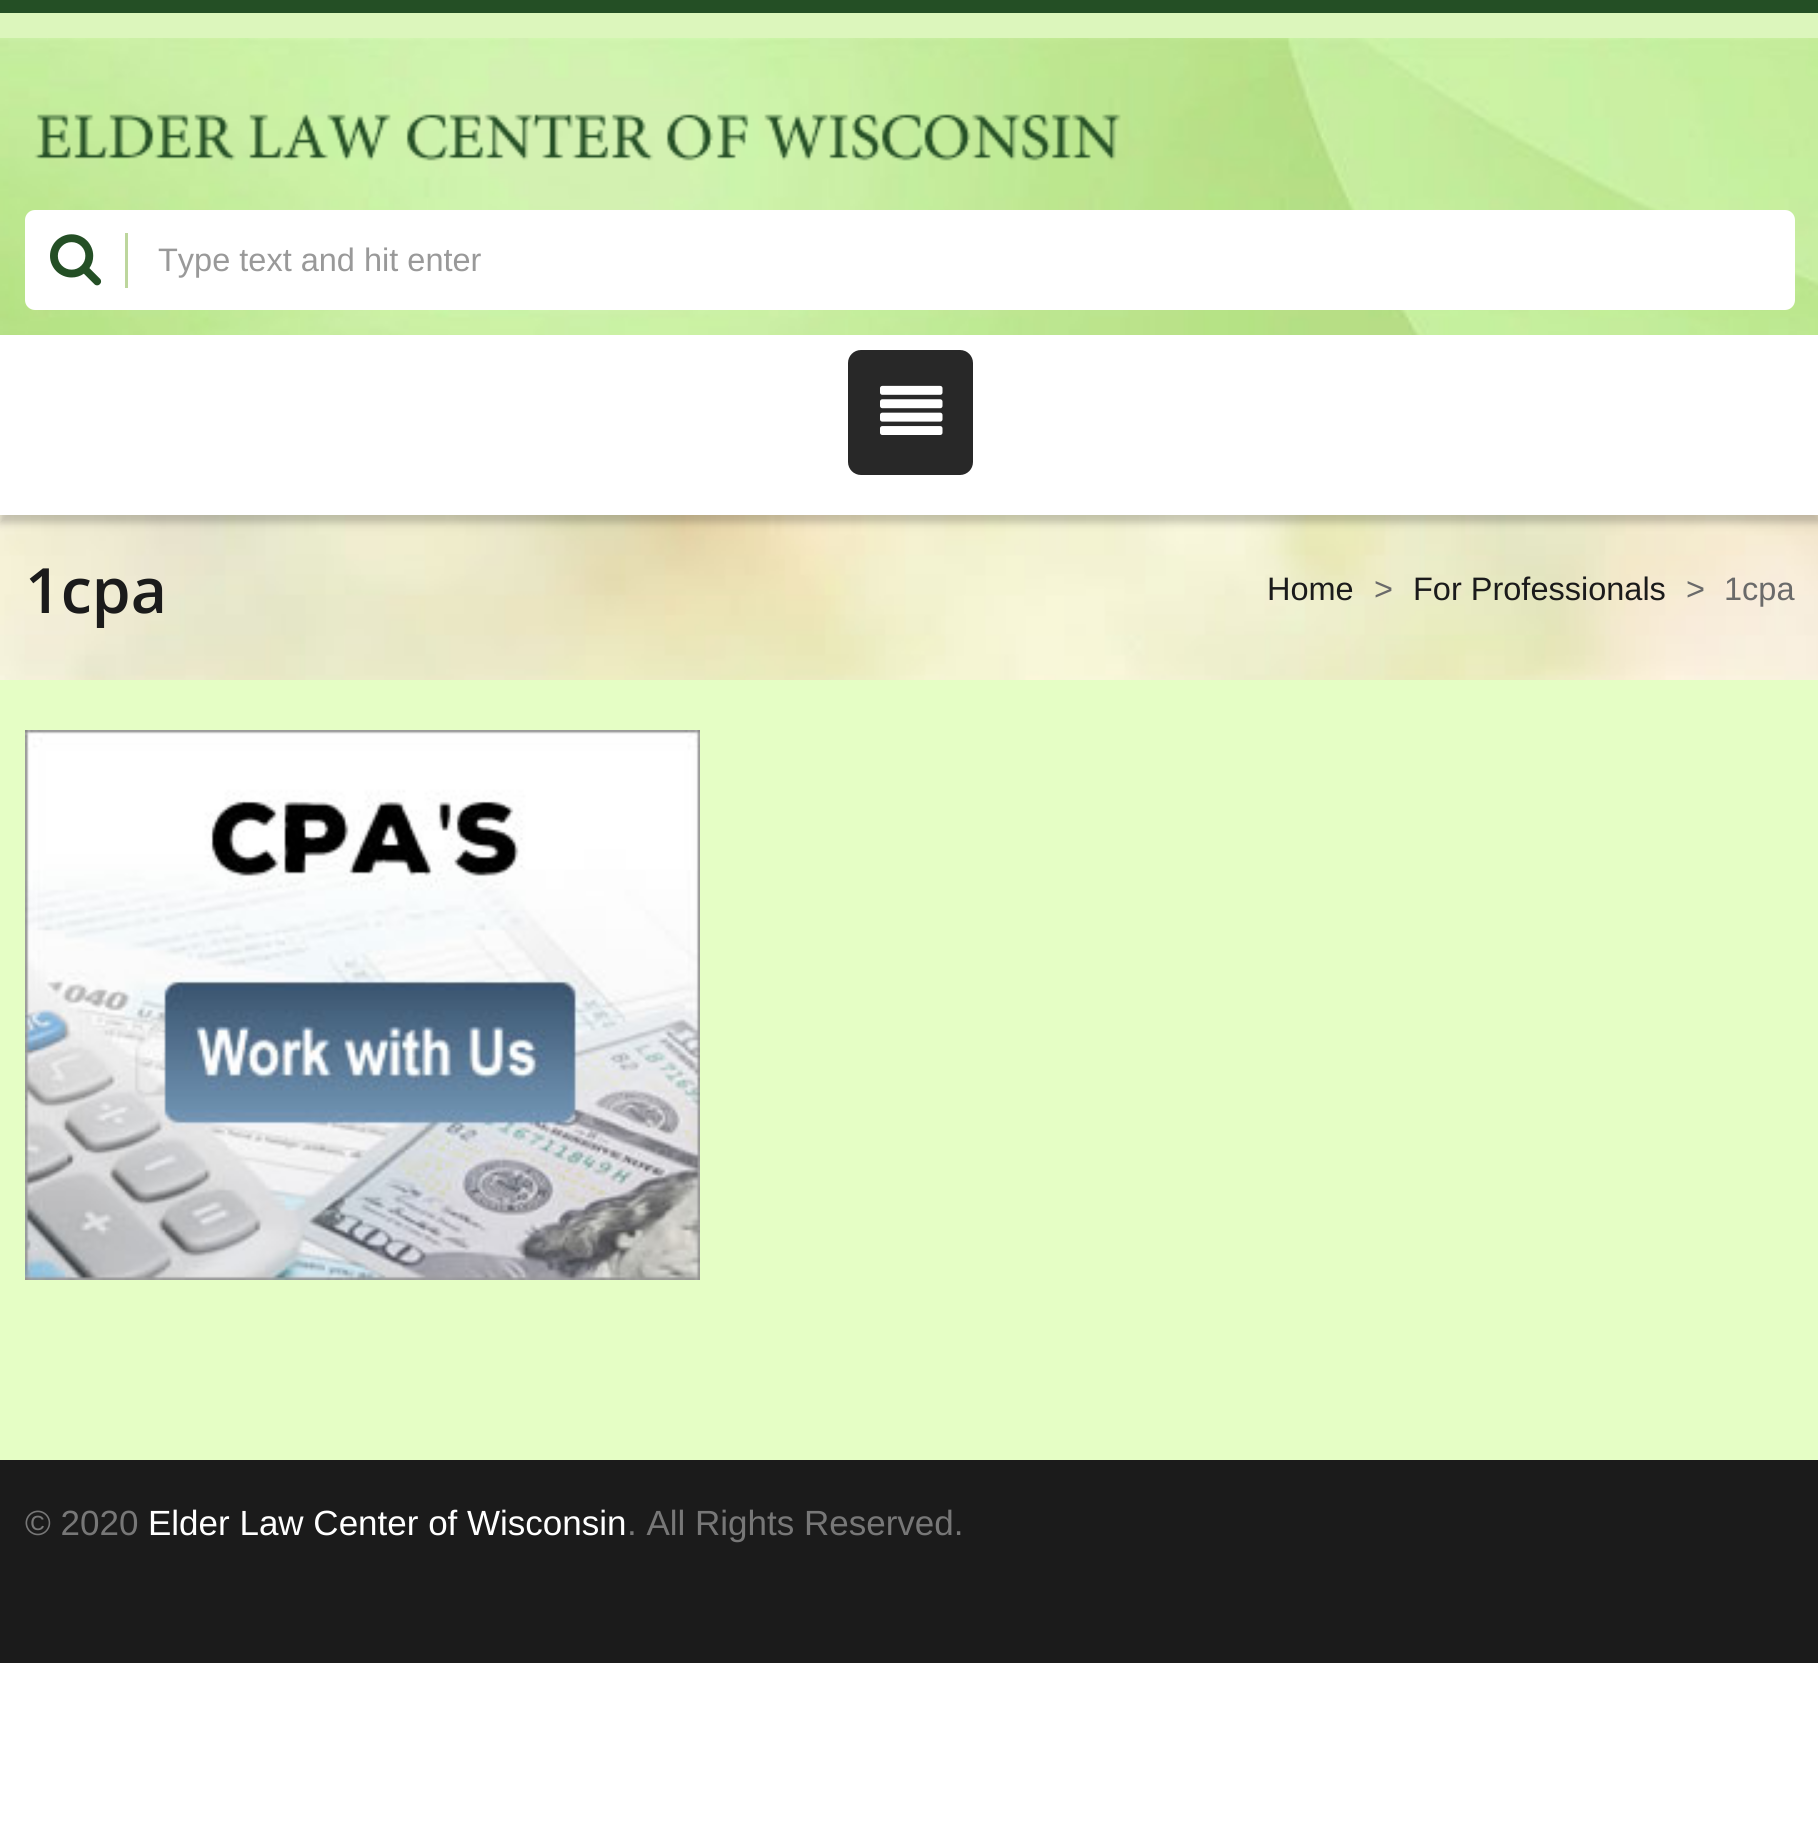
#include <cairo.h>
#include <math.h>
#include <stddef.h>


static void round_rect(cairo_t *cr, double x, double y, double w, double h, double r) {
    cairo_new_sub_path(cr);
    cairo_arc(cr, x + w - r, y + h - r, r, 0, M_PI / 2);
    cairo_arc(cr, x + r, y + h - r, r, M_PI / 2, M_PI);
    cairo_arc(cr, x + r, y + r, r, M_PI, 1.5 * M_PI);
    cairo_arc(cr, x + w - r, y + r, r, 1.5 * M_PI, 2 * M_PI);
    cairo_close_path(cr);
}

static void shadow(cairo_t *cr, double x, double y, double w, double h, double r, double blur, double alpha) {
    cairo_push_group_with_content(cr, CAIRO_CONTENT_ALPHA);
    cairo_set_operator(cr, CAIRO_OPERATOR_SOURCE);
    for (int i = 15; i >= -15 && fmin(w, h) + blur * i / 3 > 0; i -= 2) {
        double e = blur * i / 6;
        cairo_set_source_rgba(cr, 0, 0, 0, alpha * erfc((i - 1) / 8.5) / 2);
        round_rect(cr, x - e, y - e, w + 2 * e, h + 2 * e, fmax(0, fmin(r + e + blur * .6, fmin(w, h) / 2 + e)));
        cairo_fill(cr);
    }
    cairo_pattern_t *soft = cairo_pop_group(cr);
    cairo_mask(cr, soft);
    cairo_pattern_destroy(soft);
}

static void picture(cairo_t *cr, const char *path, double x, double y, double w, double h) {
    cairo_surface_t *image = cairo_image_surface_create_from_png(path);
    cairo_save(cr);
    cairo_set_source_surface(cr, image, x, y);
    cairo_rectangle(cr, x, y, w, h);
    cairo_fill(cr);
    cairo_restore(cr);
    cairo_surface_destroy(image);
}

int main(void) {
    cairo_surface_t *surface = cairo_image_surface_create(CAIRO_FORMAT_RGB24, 1818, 1829);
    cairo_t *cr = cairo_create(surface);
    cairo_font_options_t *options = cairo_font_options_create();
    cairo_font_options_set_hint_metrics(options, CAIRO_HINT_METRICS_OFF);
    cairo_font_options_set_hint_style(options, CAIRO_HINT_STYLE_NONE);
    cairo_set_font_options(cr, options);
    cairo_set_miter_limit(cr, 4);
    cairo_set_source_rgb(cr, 1, 1, 1);
    cairo_paint(cr);
    picture(cr, "img5.png", 0, 515, 1818, 165);
    cairo_set_source_rgb(cr, 0, 0, 0);
    shadow(cr, 0, 45, 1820, 478, 0, 4, 0.2);
    cairo_set_source_rgb(cr, 0.863, 0.961, 0.737);
    cairo_rectangle(cr, 0, 13, 1818, 25);
    cairo_fill(cr);
    cairo_set_source_rgb(cr, 0.141, 0.31, 0.145);
    cairo_rectangle(cr, 0, 0, 1818, 13);
    cairo_fill(cr);
    picture(cr, "img1.png", 0, 38, 1818, 297);
    picture(cr, "img2.png", 34, 114, 1087, 47);
    cairo_set_source_rgb(cr, 1, 1, 1);
    round_rect(cr, 25, 210, 1770, 100, 10);
    cairo_fill(cr);
    cairo_set_source_rgb(cr, 0.741, 0.839, 0.616);
    cairo_rectangle(cr, 125, 233, 3, 55);
    cairo_fill(cr);
    picture(cr, "img3.png", 50, 234, 52, 52);
    cairo_select_font_face(cr, "Liberation Sans", CAIRO_FONT_SLANT_NORMAL, CAIRO_FONT_WEIGHT_NORMAL);
    cairo_set_font_size(cr, 32.5);
    cairo_set_source_rgb(cr, 0.6, 0.6, 0.6);
    cairo_move_to(cr, 158, 271);
    cairo_show_text(cr, "Type text and hit enter");
    cairo_set_source_rgb(cr, 1, 1, 1);
    cairo_rectangle(cr, 0, 335, 1818, 180);
    cairo_fill(cr);
    cairo_set_source_rgb(cr, 0.157, 0.157, 0.157);
    round_rect(cr, 848, 350, 125, 125, 13);
    cairo_fill(cr);
    picture(cr, "img4.png", 880, 385, 63, 50);
    cairo_set_source_rgb(cr, 0.898, 0.996, 0.773);
    cairo_rectangle(cr, 0, 680, 1818, 780);
    cairo_fill(cr);
    cairo_select_font_face(cr, "Open Sans SemiBold", CAIRO_FONT_SLANT_NORMAL, CAIRO_FONT_WEIGHT_NORMAL);
    cairo_set_font_size(cr, 62.5);
    cairo_set_source_rgb(cr, 0.106, 0.106, 0.106);
    cairo_move_to(cr, 25, 613);
    cairo_show_text(cr, "1cpa");
    cairo_select_font_face(cr, "Liberation Sans", CAIRO_FONT_SLANT_NORMAL, CAIRO_FONT_WEIGHT_NORMAL);
    cairo_set_font_size(cr, 32.5);
    cairo_move_to(cr, 1267, 600);
    cairo_show_text(cr, "Home");
    cairo_set_source_rgb(cr, 0.416, 0.416, 0.416);
    cairo_move_to(cr, 1374, 600);
    cairo_show_text(cr, ">");
    cairo_set_source_rgb(cr, 0.106, 0.106, 0.106);
    cairo_move_to(cr, 1413, 600);
    cairo_show_text(cr, "For Professionals");
    cairo_set_source_rgb(cr, 0.416, 0.416, 0.416);
    cairo_move_to(cr, 1686, 600);
    cairo_show_text(cr, ">");
    cairo_move_to(cr, 1724, 600);
    cairo_show_text(cr, "1cpa");
    picture(cr, "img6.png", 25, 730, 675, 550);
    cairo_set_source_rgb(cr, 0.106, 0.106, 0.106);
    cairo_rectangle(cr, 0, 1460, 1818, 203);
    cairo_fill(cr);
    cairo_set_font_size(cr, 35);
    cairo_set_source_rgb(cr, 0.467, 0.467, 0.467);
    cairo_move_to(cr, 25, 1535);
    cairo_show_text(cr, "© 2020");
    cairo_set_source_rgb(cr, 1, 1, 1);
    cairo_move_to(cr, 148, 1535);
    cairo_show_text(cr, "Elder Law Center of Wisconsin");
    cairo_set_source_rgb(cr, 0.467, 0.467, 0.467);
    cairo_move_to(cr, 627, 1535);
    cairo_show_text(cr, ". All Rights Reserved.");
    cairo_surface_write_to_png(surface, "page.png");
    cairo_font_options_destroy(options);
    cairo_destroy(cr);
    cairo_surface_destroy(surface);
    return 0;
}
